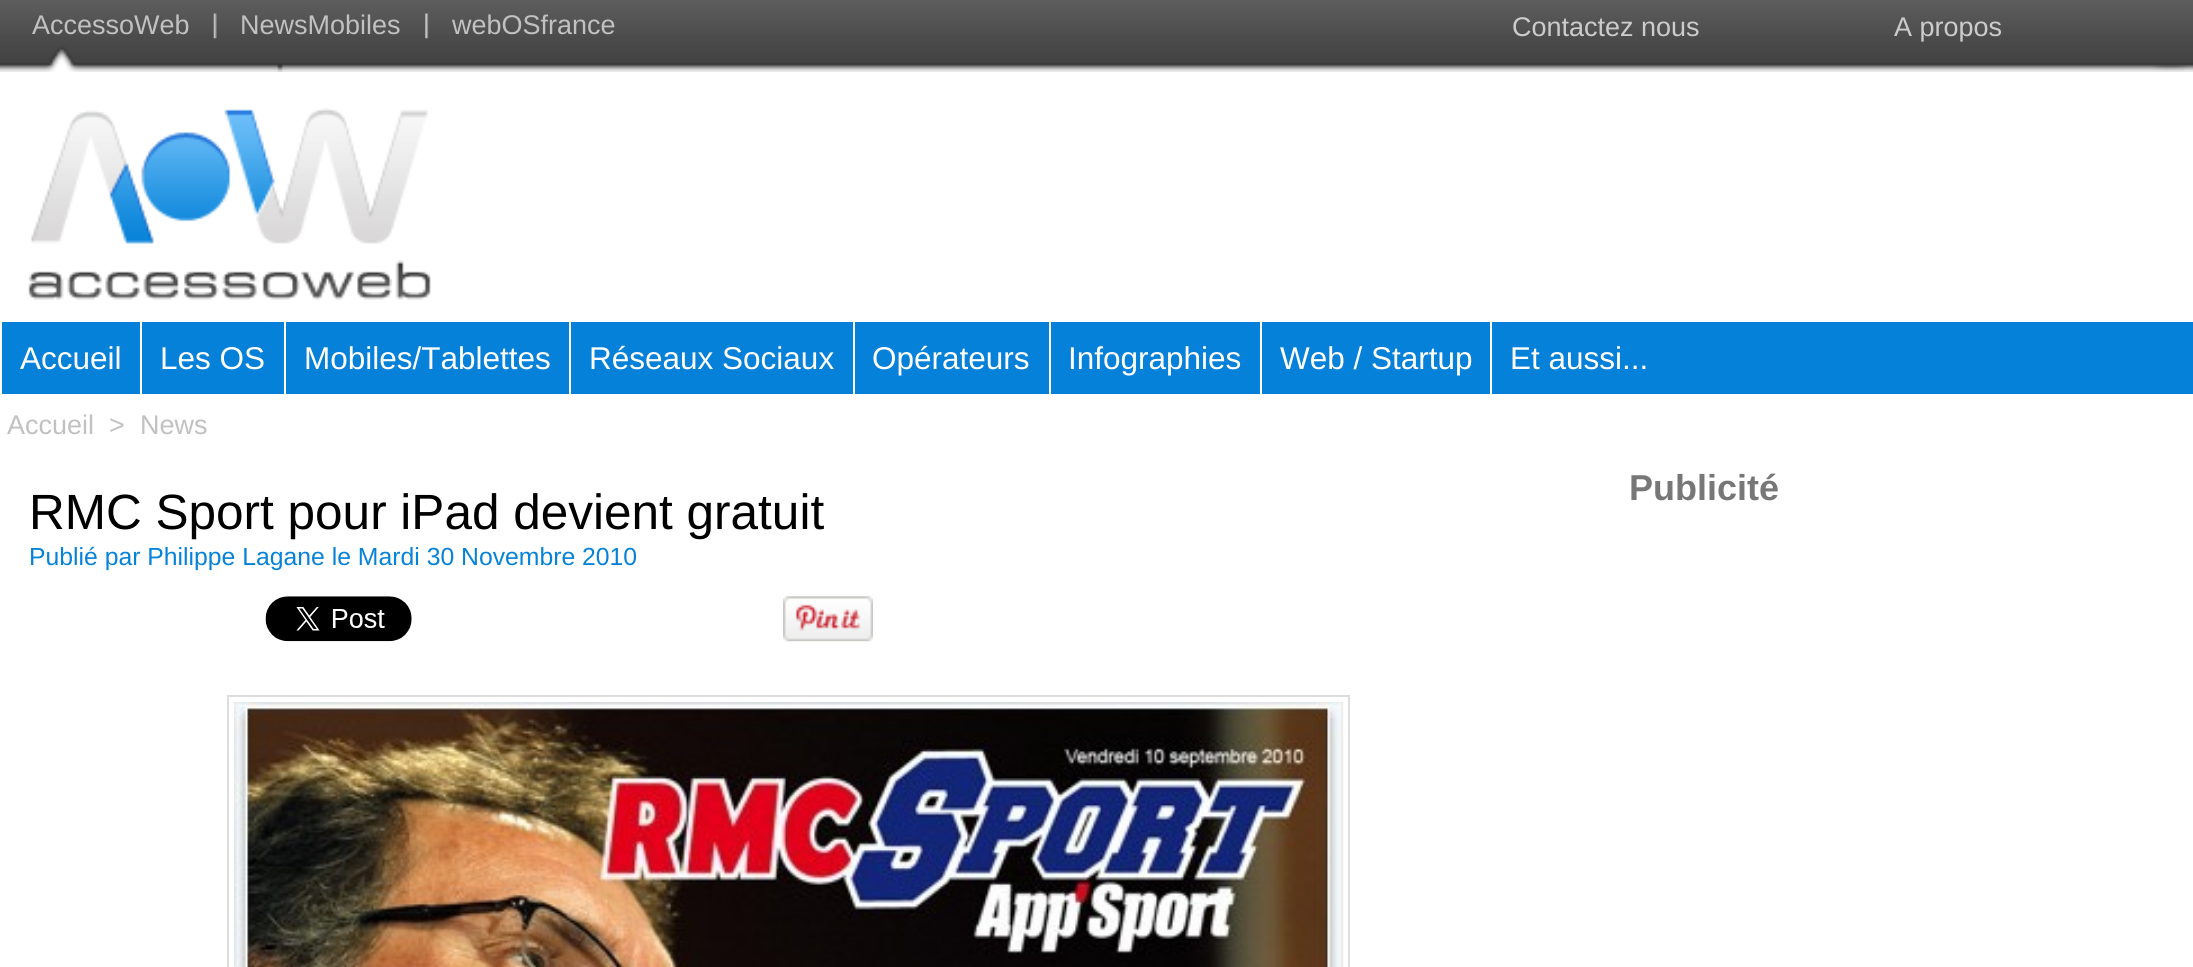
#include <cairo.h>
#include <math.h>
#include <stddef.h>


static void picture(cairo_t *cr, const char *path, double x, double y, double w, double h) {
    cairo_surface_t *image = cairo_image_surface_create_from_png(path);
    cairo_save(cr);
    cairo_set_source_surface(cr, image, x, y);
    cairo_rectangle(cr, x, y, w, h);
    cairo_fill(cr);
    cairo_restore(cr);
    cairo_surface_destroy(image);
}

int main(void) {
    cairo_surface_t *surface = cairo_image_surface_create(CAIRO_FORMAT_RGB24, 2193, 967);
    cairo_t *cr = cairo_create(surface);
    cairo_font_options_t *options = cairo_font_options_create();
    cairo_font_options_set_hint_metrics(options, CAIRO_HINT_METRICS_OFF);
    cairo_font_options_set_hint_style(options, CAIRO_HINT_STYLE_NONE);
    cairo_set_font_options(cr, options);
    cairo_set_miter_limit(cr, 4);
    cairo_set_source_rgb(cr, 1, 1, 1);
    cairo_paint(cr);
    picture(cr, "img1.png", 0, 0, 2193, 72);
    cairo_select_font_face(cr, "Liberation Sans", CAIRO_FONT_SLANT_NORMAL, CAIRO_FONT_WEIGHT_NORMAL);
    cairo_set_font_size(cr, 27);
    cairo_set_source_rgb(cr, 0.757, 0.757, 0.757);
    cairo_move_to(cr, 32, 34);
    cairo_show_text(cr, "AccessoWeb");
    picture(cr, "img2.png", 213, 13, 4, 26);
    cairo_move_to(cr, 240, 34);
    cairo_show_text(cr, "NewsMobiles");
    picture(cr, "img3.png", 425, 13, 4, 26);
    cairo_move_to(cr, 452, 34);
    cairo_show_text(cr, "webOSfrance");
    cairo_set_source_rgb(cr, 0.8, 0.8, 0.8);
    cairo_move_to(cr, 1512, 36);
    cairo_show_text(cr, "Contactez nous");
    cairo_move_to(cr, 1894, 36);
    cairo_show_text(cr, "A propos");
    picture(cr, "img4.png", 28, 108, 403, 192);
    cairo_set_source_rgb(cr, 0.027, 0.506, 0.851);
    cairo_rectangle(cr, 2, 322, 2191, 72);
    cairo_fill(cr);
    cairo_set_source_rgb(cr, 1, 1, 1);
    cairo_rectangle(cr, 140, 322, 2, 72);
    cairo_fill(cr);
    cairo_set_font_size(cr, 31.5);
    cairo_move_to(cr, 20, 369);
    cairo_show_text(cr, "Accueil");
    cairo_rectangle(cr, 284, 322, 2, 72);
    cairo_fill(cr);
    cairo_move_to(cr, 160, 369);
    cairo_show_text(cr, "Les OS");
    cairo_rectangle(cr, 569, 322, 2, 72);
    cairo_fill(cr);
    cairo_move_to(cr, 304, 369);
    cairo_show_text(cr, "Mobiles/Tablettes");
    cairo_rectangle(cr, 853, 322, 2, 72);
    cairo_fill(cr);
    cairo_move_to(cr, 589, 369);
    cairo_show_text(cr, "Réseaux Sociaux");
    cairo_rectangle(cr, 1049, 322, 2, 72);
    cairo_fill(cr);
    cairo_move_to(cr, 872, 369);
    cairo_show_text(cr, "Opérateurs");
    cairo_rectangle(cr, 1260, 322, 2, 72);
    cairo_fill(cr);
    cairo_move_to(cr, 1068, 369);
    cairo_show_text(cr, "Infographies");
    cairo_rectangle(cr, 1490, 322, 2, 72);
    cairo_fill(cr);
    cairo_move_to(cr, 1280, 369);
    cairo_show_text(cr, "Web / Startup");
    cairo_move_to(cr, 1510, 369);
    cairo_show_text(cr, "Et aussi...");
    cairo_set_font_size(cr, 27);
    cairo_set_source_rgb(cr, 0.757, 0.757, 0.757);
    cairo_move_to(cr, 7, 434);
    cairo_show_text(cr, "Accueil");
    cairo_move_to(cr, 109, 434);
    cairo_show_text(cr, ">");
    cairo_move_to(cr, 140, 434);
    cairo_show_text(cr, "News");
    cairo_set_font_size(cr, 49.5);
    cairo_set_source_rgb(cr, 0, 0, 0);
    cairo_move_to(cr, 29, 529);
    cairo_show_text(cr, "RMC Sport pour iPad devient gratuit");
    cairo_set_font_size(cr, 24.75);
    cairo_set_source_rgb(cr, 0.027, 0.514, 0.851);
    cairo_move_to(cr, 29, 565);
    cairo_show_text(cr, "Publié par Philippe Lagane le Mardi 30 Novembre 2010");
    picture(cr, "img5.png", 265, 596, 147, 46);
    picture(cr, "img6.png", 783, 596, 90, 46);
    cairo_rectangle(cr, 228, 696, 1121, 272);
    cairo_set_source_rgb(cr, 0.867, 0.867, 0.867);
    cairo_stroke(cr);
    picture(cr, "img7.png", 234, 702, 1110, 265);
    cairo_select_font_face(cr, "Liberation Sans", CAIRO_FONT_SLANT_NORMAL, CAIRO_FONT_WEIGHT_BOLD);
    cairo_set_font_size(cr, 36);
    cairo_set_source_rgb(cr, 0.471, 0.467, 0.467);
    cairo_move_to(cr, 1629, 500);
    cairo_show_text(cr, "Publicité");
    cairo_surface_write_to_png(surface, "page.png");
    cairo_font_options_destroy(options);
    cairo_destroy(cr);
    cairo_surface_destroy(surface);
    return 0;
}
